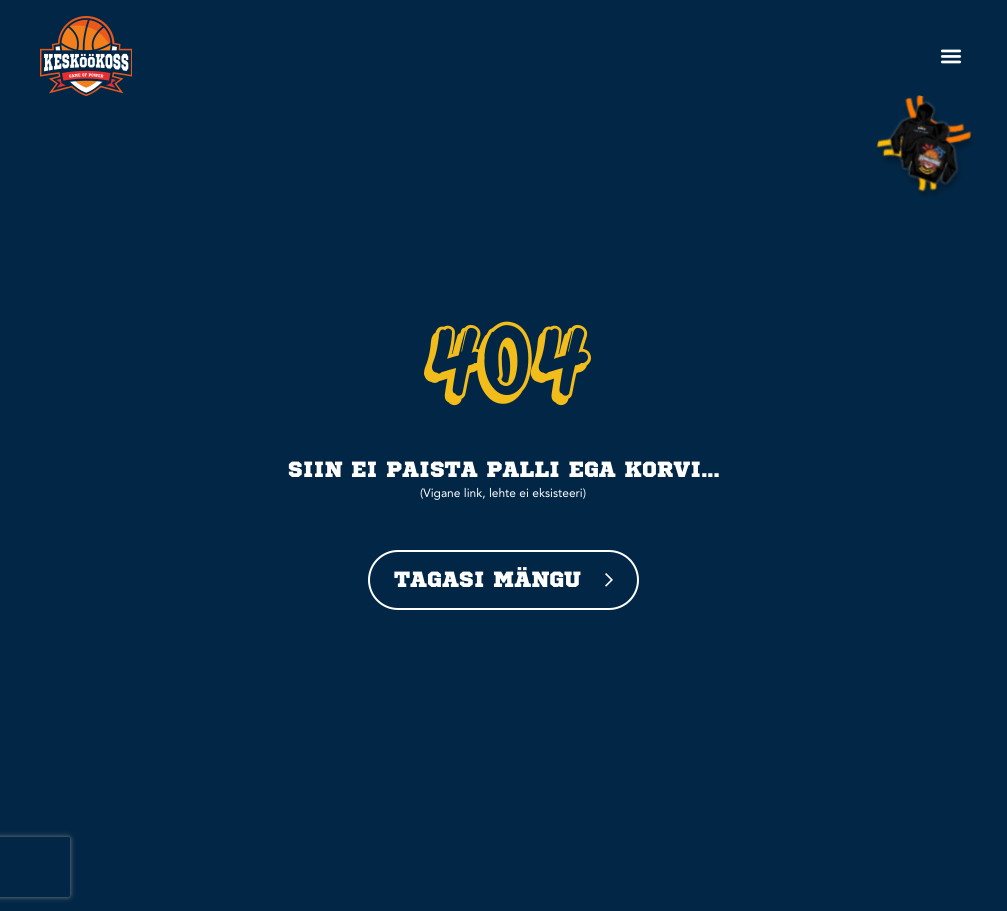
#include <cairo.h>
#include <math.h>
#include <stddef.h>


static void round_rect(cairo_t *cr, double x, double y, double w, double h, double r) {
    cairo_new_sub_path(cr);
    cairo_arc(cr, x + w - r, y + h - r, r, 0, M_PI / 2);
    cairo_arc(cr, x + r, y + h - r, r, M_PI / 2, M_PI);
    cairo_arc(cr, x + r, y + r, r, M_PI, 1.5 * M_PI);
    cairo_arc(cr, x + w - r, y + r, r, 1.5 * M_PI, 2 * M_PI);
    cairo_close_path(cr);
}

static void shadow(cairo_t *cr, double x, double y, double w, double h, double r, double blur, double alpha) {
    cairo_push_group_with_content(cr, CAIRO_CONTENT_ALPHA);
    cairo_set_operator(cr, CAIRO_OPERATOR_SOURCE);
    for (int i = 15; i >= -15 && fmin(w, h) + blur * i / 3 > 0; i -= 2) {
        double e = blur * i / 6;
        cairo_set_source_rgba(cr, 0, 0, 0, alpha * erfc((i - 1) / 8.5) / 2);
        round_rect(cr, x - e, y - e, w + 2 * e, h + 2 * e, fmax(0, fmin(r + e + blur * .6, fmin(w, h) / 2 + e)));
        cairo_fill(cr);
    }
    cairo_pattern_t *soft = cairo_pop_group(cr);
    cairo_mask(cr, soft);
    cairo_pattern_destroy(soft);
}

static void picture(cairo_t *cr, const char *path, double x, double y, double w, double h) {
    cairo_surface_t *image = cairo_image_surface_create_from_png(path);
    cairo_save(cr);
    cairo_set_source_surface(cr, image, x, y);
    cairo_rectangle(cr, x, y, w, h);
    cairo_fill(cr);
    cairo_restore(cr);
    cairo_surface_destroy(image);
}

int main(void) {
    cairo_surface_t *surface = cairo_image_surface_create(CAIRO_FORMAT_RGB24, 1007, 911);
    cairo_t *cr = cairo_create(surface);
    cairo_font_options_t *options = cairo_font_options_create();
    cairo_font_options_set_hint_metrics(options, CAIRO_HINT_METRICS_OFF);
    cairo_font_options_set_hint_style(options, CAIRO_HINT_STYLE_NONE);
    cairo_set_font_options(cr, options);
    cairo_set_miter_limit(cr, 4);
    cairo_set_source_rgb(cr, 0.008, 0.153, 0.275);
    cairo_paint(cr);
    picture(cr, "img1.png", 40, 16, 92, 80);
    picture(cr, "img2.png", 940, 49, 22, 15);
    picture(cr, "img3.png", 876, 95, 98, 103);
    cairo_select_font_face(cr, "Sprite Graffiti", CAIRO_FONT_SLANT_NORMAL, CAIRO_FONT_WEIGHT_NORMAL);
    cairo_set_font_size(cr, 110);
    cairo_set_source_rgb(cr, 0.949, 0.737, 0.106);
    cairo_move_to(cr, 423, 395);
    cairo_show_text(cr, "404");
    cairo_select_font_face(cr, "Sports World", CAIRO_FONT_SLANT_NORMAL, CAIRO_FONT_WEIGHT_NORMAL);
    cairo_set_font_size(cr, 22);
    cairo_set_source_rgb(cr, 1, 1, 1);
    cairo_move_to(cr, 288, 477);
    cairo_show_text(cr, "SIIN EI PAISTA PALLI EGA KORVI...");
    cairo_select_font_face(cr, "Avenir", CAIRO_FONT_SLANT_NORMAL, CAIRO_FONT_WEIGHT_NORMAL);
    cairo_set_font_size(cr, 12);
    cairo_move_to(cr, 420, 497);
    cairo_show_text(cr, "(Vigane link, lehte ei eksisteeri)");
    round_rect(cr, 369, 551, 269, 58, 29);
    cairo_stroke(cr);
    cairo_select_font_face(cr, "Sports World", CAIRO_FONT_SLANT_NORMAL, CAIRO_FONT_WEIGHT_NORMAL);
    cairo_set_font_size(cr, 22);
    cairo_move_to(cr, 394, 587);
    cairo_show_text(cr, "TAGASI MÄNGU");
    picture(cr, "img4.png", 605, 573, 8, 14);
    cairo_save(cr);
    cairo_set_fill_rule(cr, CAIRO_FILL_RULE_EVEN_ODD);
    cairo_new_path(cr);
    cairo_move_to(cr, 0, 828);
    cairo_line_to(cr, 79, 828);
    cairo_line_to(cr, 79, 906);
    cairo_line_to(cr, 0, 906);
    cairo_close_path(cr);
    cairo_move_to(cr, -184, 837);
    cairo_line_to(cr, 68, 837);
    cairo_curve_to(cr, 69, 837, 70, 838, 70, 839);
    cairo_line_to(cr, 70, 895);
    cairo_curve_to(cr, 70, 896, 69, 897, 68, 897);
    cairo_line_to(cr, -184, 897);
    cairo_curve_to(cr, -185, 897, -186, 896, -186, 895);
    cairo_line_to(cr, -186, 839);
    cairo_curve_to(cr, -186, 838, -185, 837, -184, 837);
    cairo_close_path(cr);
    cairo_clip(cr);
    cairo_set_source_rgb(cr, 0.502, 0.502, 0.502);
    shadow(cr, -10, 837, 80, 60, 2, 2.5, 1);
    cairo_restore(cr);
    cairo_surface_write_to_png(surface, "page.png");
    cairo_font_options_destroy(options);
    cairo_destroy(cr);
    cairo_surface_destroy(surface);
    return 0;
}
